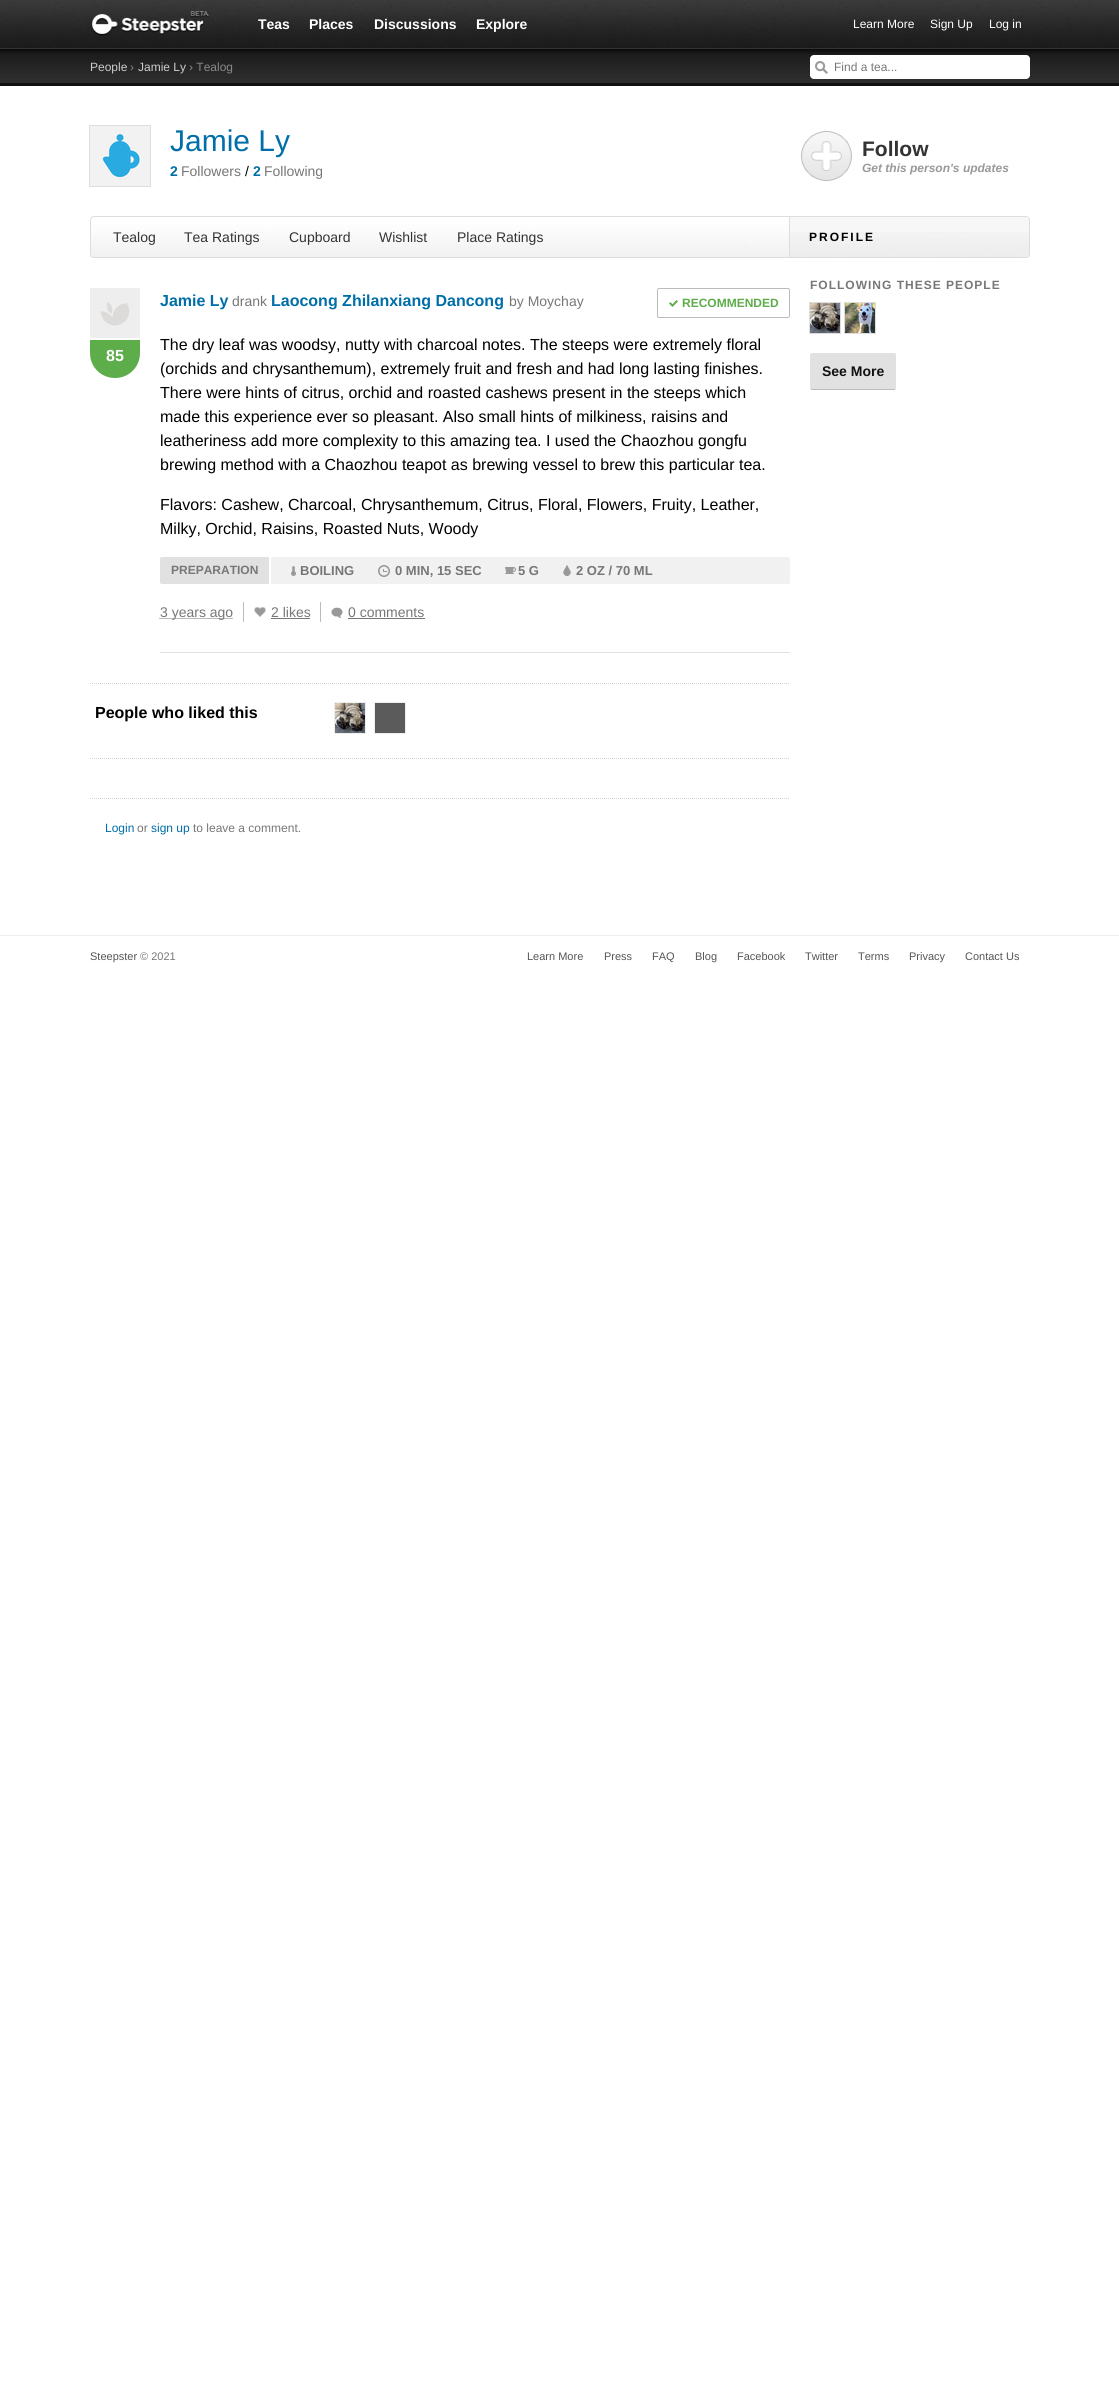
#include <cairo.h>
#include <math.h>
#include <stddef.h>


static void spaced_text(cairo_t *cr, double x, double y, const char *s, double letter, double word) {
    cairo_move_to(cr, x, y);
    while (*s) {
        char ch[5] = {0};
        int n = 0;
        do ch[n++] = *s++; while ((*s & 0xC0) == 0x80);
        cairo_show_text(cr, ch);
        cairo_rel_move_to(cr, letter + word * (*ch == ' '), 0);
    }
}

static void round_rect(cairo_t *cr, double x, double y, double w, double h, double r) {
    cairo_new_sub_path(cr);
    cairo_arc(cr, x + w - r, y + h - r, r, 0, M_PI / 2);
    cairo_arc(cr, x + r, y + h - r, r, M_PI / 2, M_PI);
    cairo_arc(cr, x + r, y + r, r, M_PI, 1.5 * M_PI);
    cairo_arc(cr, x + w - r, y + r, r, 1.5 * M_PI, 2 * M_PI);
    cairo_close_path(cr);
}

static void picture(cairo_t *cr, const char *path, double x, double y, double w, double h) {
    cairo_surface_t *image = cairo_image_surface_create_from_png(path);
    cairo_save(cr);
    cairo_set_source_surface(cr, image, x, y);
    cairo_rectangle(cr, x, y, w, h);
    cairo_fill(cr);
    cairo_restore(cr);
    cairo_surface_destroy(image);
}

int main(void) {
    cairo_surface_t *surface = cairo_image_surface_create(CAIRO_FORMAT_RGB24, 1119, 2398);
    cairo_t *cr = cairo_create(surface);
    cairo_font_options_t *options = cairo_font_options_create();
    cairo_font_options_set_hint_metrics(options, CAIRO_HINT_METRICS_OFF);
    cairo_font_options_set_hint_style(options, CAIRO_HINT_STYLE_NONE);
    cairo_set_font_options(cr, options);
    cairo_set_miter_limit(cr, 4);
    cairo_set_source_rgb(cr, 1, 1, 1);
    cairo_paint(cr);
    picture(cr, "img1.png", 0, 0, 1119, 48);
    picture(cr, "img2.png", 91, 11, 118, 25);
    cairo_select_font_face(cr, "Liberation Sans", CAIRO_FONT_SLANT_NORMAL, CAIRO_FONT_WEIGHT_BOLD);
    cairo_set_font_size(cr, 14);
    cairo_set_source_rgb(cr, 1, 1, 1);
    cairo_move_to(cr, 258, 29);
    cairo_show_text(cr, "Teas");
    cairo_move_to(cr, 309, 29);
    cairo_show_text(cr, "Places");
    cairo_move_to(cr, 374, 29);
    cairo_show_text(cr, "Discussions");
    cairo_move_to(cr, 476, 29);
    cairo_show_text(cr, "Explore");
    cairo_select_font_face(cr, "Liberation Sans", CAIRO_FONT_SLANT_NORMAL, CAIRO_FONT_WEIGHT_NORMAL);
    cairo_set_font_size(cr, 12);
    cairo_move_to(cr, 853, 28);
    cairo_show_text(cr, "Learn More");
    cairo_move_to(cr, 930, 28);
    cairo_show_text(cr, "Sign Up");
    cairo_move_to(cr, 989, 28);
    cairo_show_text(cr, "Log in");
    cairo_set_source_rgb(cr, 0.067, 0.067, 0.067);
    cairo_rectangle(cr, 0, 83, 1119, 3);
    cairo_fill(cr);
    picture(cr, "img3.png", 0, 49, 1119, 34);
    cairo_set_source_rgb(cr, 0.2, 0.2, 0.2);
    cairo_rectangle(cr, 0, 48, 1119, 1);
    cairo_fill(cr);
    cairo_set_source_rgb(cr, 0.8, 0.8, 0.8);
    cairo_move_to(cr, 90, 71);
    cairo_show_text(cr, "People");
    cairo_set_source_rgb(cr, 0.533, 0.533, 0.533);
    cairo_move_to(cr, 130, 71);
    cairo_show_text(cr, "›");
    cairo_set_source_rgb(cr, 0.8, 0.8, 0.8);
    cairo_move_to(cr, 138, 71);
    cairo_show_text(cr, "Jamie Ly");
    cairo_set_source_rgb(cr, 0.533, 0.533, 0.533);
    cairo_move_to(cr, 189, 71);
    cairo_show_text(cr, "› Tealog");
    cairo_set_source_rgb(cr, 1, 1, 1);
    round_rect(cr, 810, 55, 220, 24, 4);
    cairo_fill(cr);
    picture(cr, "img4.png", 815, 61, 13, 13);
    cairo_set_source_rgb(cr, 0.467, 0.467, 0.467);
    cairo_move_to(cr, 834, 71);
    cairo_show_text(cr, "Find a tea...");
    picture(cr, "img5.png", 90, 126, 60, 60);
    cairo_rectangle(cr, 89.5, 125.5, 61, 61);
    cairo_set_source_rgb(cr, 0.867, 0.867, 0.867);
    cairo_set_line_width(cr, 1);
    cairo_stroke(cr);
    cairo_set_font_size(cr, 30);
    cairo_set_source_rgb(cr, 0, 0.431, 0.659);
    cairo_move_to(cr, 170, 151);
    cairo_show_text(cr, "Jamie Ly");
    cairo_select_font_face(cr, "Liberation Sans", CAIRO_FONT_SLANT_NORMAL, CAIRO_FONT_WEIGHT_BOLD);
    cairo_set_font_size(cr, 14);
    cairo_move_to(cr, 170, 176);
    cairo_show_text(cr, "2");
    cairo_select_font_face(cr, "Liberation Sans", CAIRO_FONT_SLANT_NORMAL, CAIRO_FONT_WEIGHT_NORMAL);
    cairo_set_source_rgb(cr, 0.467, 0.467, 0.467);
    cairo_move_to(cr, 181, 176);
    cairo_show_text(cr, "Followers");
    cairo_set_source_rgb(cr, 0, 0, 0);
    cairo_move_to(cr, 245, 176);
    cairo_show_text(cr, "/");
    cairo_select_font_face(cr, "Liberation Sans", CAIRO_FONT_SLANT_NORMAL, CAIRO_FONT_WEIGHT_BOLD);
    cairo_set_source_rgb(cr, 0, 0.431, 0.659);
    cairo_move_to(cr, 253, 176);
    cairo_show_text(cr, "2");
    cairo_select_font_face(cr, "Liberation Sans", CAIRO_FONT_SLANT_NORMAL, CAIRO_FONT_WEIGHT_NORMAL);
    cairo_set_source_rgb(cr, 0.467, 0.467, 0.467);
    cairo_move_to(cr, 264, 176);
    cairo_show_text(cr, "Following");
    picture(cr, "img6.png", 90, 224, 699, 33);
    cairo_new_path(cr);
    cairo_move_to(cr, 94, 216.5);
    cairo_line_to(cr, 789.5, 216.5);
    cairo_line_to(cr, 789.5, 257.5);
    cairo_line_to(cr, 94, 257.5);
    cairo_curve_to(cr, 92, 257.5, 90.5, 256, 90.5, 254);
    cairo_line_to(cr, 90.5, 220);
    cairo_curve_to(cr, 90.5, 218, 92, 216.5, 94, 216.5);
    cairo_close_path(cr);
    cairo_set_source_rgb(cr, 0.867, 0.867, 0.867);
    cairo_stroke(cr);
    cairo_set_source_rgb(cr, 0.2, 0.2, 0.2);
    cairo_move_to(cr, 113, 242);
    cairo_show_text(cr, "Tealog");
    cairo_move_to(cr, 184, 242);
    cairo_show_text(cr, "Tea Ratings");
    cairo_move_to(cr, 289, 242);
    cairo_show_text(cr, "Cupboard");
    cairo_move_to(cr, 379, 242);
    cairo_show_text(cr, "Wishlist");
    cairo_move_to(cr, 457, 242);
    cairo_show_text(cr, "Place Ratings");
    cairo_select_font_face(cr, "Liberation Sans", CAIRO_FONT_SLANT_NORMAL, CAIRO_FONT_WEIGHT_BOLD);
    cairo_set_font_size(cr, 16);
    cairo_set_source_rgb(cr, 0, 0.431, 0.659);
    cairo_move_to(cr, 160, 306);
    cairo_show_text(cr, "Jamie Ly");
    cairo_select_font_face(cr, "Liberation Sans", CAIRO_FONT_SLANT_NORMAL, CAIRO_FONT_WEIGHT_NORMAL);
    cairo_set_font_size(cr, 14);
    cairo_set_source_rgb(cr, 0.467, 0.467, 0.467);
    cairo_move_to(cr, 232, 306);
    cairo_show_text(cr, "drank");
    cairo_select_font_face(cr, "Liberation Sans", CAIRO_FONT_SLANT_NORMAL, CAIRO_FONT_WEIGHT_BOLD);
    cairo_set_font_size(cr, 16);
    cairo_set_source_rgb(cr, 0, 0.431, 0.659);
    cairo_move_to(cr, 271, 306);
    cairo_show_text(cr, "Laocong Zhilanxiang Dancong");
    cairo_select_font_face(cr, "Liberation Sans", CAIRO_FONT_SLANT_NORMAL, CAIRO_FONT_WEIGHT_NORMAL);
    cairo_set_font_size(cr, 14);
    cairo_set_source_rgb(cr, 0.467, 0.467, 0.467);
    cairo_move_to(cr, 509, 306);
    cairo_show_text(cr, "by Moychay");
    picture(cr, "img7.png", 669, 300, 9, 7);
    round_rect(cr, 657.5, 288.5, 132, 29, 1.5);
    cairo_set_source_rgb(cr, 0.733, 0.733, 0.733);
    cairo_stroke(cr);
    cairo_select_font_face(cr, "Liberation Sans", CAIRO_FONT_SLANT_NORMAL, CAIRO_FONT_WEIGHT_BOLD);
    cairo_set_font_size(cr, 12);
    cairo_set_source_rgb(cr, 0.365, 0.678, 0.29);
    cairo_move_to(cr, 682, 307);
    cairo_show_text(cr, "RECOMMENDED");
    cairo_new_path(cr);
    cairo_move_to(cr, 90, 323);
    cairo_line_to(cr, 140, 323);
    cairo_line_to(cr, 140, 353);
    cairo_curve_to(cr, 140, 367, 129, 378, 115, 378);
    cairo_curve_to(cr, 101, 378, 90, 367, 90, 353);
    cairo_close_path(cr);
    cairo_fill(cr);
    cairo_rectangle(cr, 89, 287, 52, 52);
    cairo_set_source_rgb(cr, 1, 1, 1);
    cairo_set_line_width(cr, 2);
    cairo_stroke(cr);
    picture(cr, "img8.png", 90, 288, 50, 50);
    cairo_set_font_size(cr, 16);
    cairo_move_to(cr, 106, 361);
    cairo_show_text(cr, "85");
    cairo_set_source_rgb(cr, 0.882, 0.882, 0.882);
    cairo_rectangle(cr, 160, 652, 630, 1);
    cairo_fill(cr);
    cairo_select_font_face(cr, "Liberation Sans", CAIRO_FONT_SLANT_NORMAL, CAIRO_FONT_WEIGHT_NORMAL);
    cairo_set_source_rgb(cr, 0, 0, 0);
    cairo_move_to(cr, 160, 350);
    cairo_show_text(cr, "The dry leaf was woodsy, nutty with charcoal notes. The steeps were extremely floral");
    cairo_move_to(cr, 160, 374);
    cairo_show_text(cr, "(orchids and chrysanthemum), extremely fruit and fresh and had long lasting finishes.");
    cairo_move_to(cr, 160, 398);
    cairo_show_text(cr, "There were hints of citrus, orchid and roasted cashews present in the steeps which");
    cairo_move_to(cr, 160, 422);
    cairo_show_text(cr, "made this experience ever so pleasant. Also small hints of milkiness, raisins and");
    cairo_move_to(cr, 160, 446);
    cairo_show_text(cr, "leatheriness add more complexity to this amazing tea. I used the Chaozhou gongfu");
    cairo_move_to(cr, 160, 470);
    cairo_show_text(cr, "brewing method with a Chaozhou teapot as brewing vessel to brew this particular tea.");
    cairo_move_to(cr, 160, 510);
    cairo_show_text(cr, "Flavors: Cashew, Charcoal, Chrysanthemum, Citrus, Floral, Flowers, Fruity, Leather,");
    cairo_move_to(cr, 160, 534);
    cairo_show_text(cr, "Milky, Orchid, Raisins, Roasted Nuts, Woody");
    cairo_set_source_rgb(cr, 0.945, 0.945, 0.945);
    round_rect(cr, 160, 557, 630, 27, 2);
    cairo_fill(cr);
    cairo_set_source_rgb(cr, 0.882, 0.882, 0.882);
    cairo_new_path(cr);
    cairo_move_to(cr, 162, 557);
    cairo_line_to(cr, 271, 557);
    cairo_line_to(cr, 271, 584);
    cairo_line_to(cr, 162, 584);
    cairo_curve_to(cr, 161, 584, 160, 583, 160, 582);
    cairo_line_to(cr, 160, 559);
    cairo_curve_to(cr, 160, 558, 161, 557, 162, 557);
    cairo_close_path(cr);
    cairo_fill(cr);
    cairo_set_source_rgb(cr, 1, 1, 1);
    cairo_rectangle(cr, 269, 557, 2, 27);
    cairo_fill(cr);
    cairo_select_font_face(cr, "Liberation Sans", CAIRO_FONT_SLANT_NORMAL, CAIRO_FONT_WEIGHT_BOLD);
    cairo_set_font_size(cr, 12);
    cairo_set_source_rgb(cr, 0.467, 0.467, 0.467);
    cairo_move_to(cr, 171, 574);
    cairo_show_text(cr, "PREPARATION");
    picture(cr, "img9.png", 291, 566, 5, 10);
    cairo_set_font_size(cr, 13);
    cairo_move_to(cr, 300, 575);
    cairo_show_text(cr, "BOILING");
    picture(cr, "img10.png", 378, 565, 12, 12);
    cairo_move_to(cr, 395, 575);
    cairo_show_text(cr, "0 MIN, 15 SEC");
    picture(cr, "img11.png", 505, 567, 11, 7);
    cairo_move_to(cr, 518, 575);
    cairo_show_text(cr, "5 G");
    picture(cr, "img12.png", 563, 565, 8, 11);
    cairo_move_to(cr, 576, 575);
    cairo_show_text(cr, "2 OZ / 70 ML");
    cairo_set_source_rgb(cr, 0.733, 0.733, 0.733);
    cairo_rectangle(cr, 243, 602, 1, 20);
    cairo_fill(cr);
    cairo_new_path(cr);
    cairo_move_to(cr, 159.5, 618.5);
    cairo_line_to(cr, 232.5, 618.5);
    cairo_set_source_rgb(cr, 0.467, 0.467, 0.467);
    cairo_set_line_width(cr, 1);
    cairo_set_dash(cr, (double[]){1, 1}, 2, 0);
    cairo_stroke(cr);
    cairo_select_font_face(cr, "Liberation Sans", CAIRO_FONT_SLANT_NORMAL, CAIRO_FONT_WEIGHT_NORMAL);
    cairo_set_font_size(cr, 14);
    cairo_move_to(cr, 160, 617);
    cairo_show_text(cr, "3 years ago");
    picture(cr, "img13.png", 254, 607, 12, 10);
    cairo_set_source_rgb(cr, 0.733, 0.733, 0.733);
    cairo_rectangle(cr, 320, 602, 1, 20);
    cairo_fill(cr);
    cairo_set_source_rgb(cr, 0.467, 0.467, 0.467);
    cairo_move_to(cr, 271, 617);
    cairo_show_text(cr, "2 likes");
    cairo_rectangle(cr, 271, 618, 39, 1);
    cairo_fill(cr);
    picture(cr, "img14.png", 331, 607, 12, 11);
    cairo_move_to(cr, 348, 617);
    cairo_show_text(cr, "0 comments");
    cairo_rectangle(cr, 348, 618, 77, 1);
    cairo_fill(cr);
    cairo_new_path(cr);
    cairo_move_to(cr, 90, 683.5);
    cairo_line_to(cr, 790, 683.5);
    cairo_set_source_rgb(cr, 0.827, 0.827, 0.827);
    cairo_stroke(cr);
    cairo_select_font_face(cr, "Liberation Sans", CAIRO_FONT_SLANT_NORMAL, CAIRO_FONT_WEIGHT_BOLD);
    cairo_set_font_size(cr, 16);
    cairo_set_source_rgb(cr, 0, 0, 0);
    cairo_move_to(cr, 95, 718);
    cairo_show_text(cr, "People who liked this");
    picture(cr, "img15.png", 335, 703, 30, 30);
    cairo_rectangle(cr, 334.5, 702.5, 31, 31);
    cairo_set_source_rgb(cr, 0.933, 0.933, 0.933);
    cairo_set_dash(cr, NULL, 0, 0);
    cairo_stroke(cr);
    cairo_set_source_rgb(cr, 0.357, 0.357, 0.357);
    cairo_rectangle(cr, 374.5, 702.5, 31, 31);
    cairo_fill_preserve(cr);
    cairo_set_source_rgb(cr, 0.933, 0.933, 0.933);
    cairo_stroke(cr);
    cairo_new_path(cr);
    cairo_move_to(cr, 90, 758.5);
    cairo_line_to(cr, 790, 758.5);
    cairo_set_source_rgb(cr, 0.827, 0.827, 0.827);
    cairo_set_dash(cr, (double[]){1, 1}, 2, 0);
    cairo_stroke(cr);
    cairo_new_path(cr);
    cairo_move_to(cr, 90, 798.5);
    cairo_line_to(cr, 790, 798.5);
    cairo_stroke(cr);
    cairo_select_font_face(cr, "Liberation Sans", CAIRO_FONT_SLANT_NORMAL, CAIRO_FONT_WEIGHT_NORMAL);
    cairo_set_font_size(cr, 12);
    cairo_set_source_rgb(cr, 0, 0.431, 0.659);
    cairo_move_to(cr, 105, 832);
    cairo_show_text(cr, "Login");
    cairo_set_source_rgb(cr, 0.467, 0.467, 0.467);
    cairo_move_to(cr, 137, 832);
    cairo_show_text(cr, "or");
    cairo_set_source_rgb(cr, 0, 0.431, 0.659);
    cairo_move_to(cr, 151, 832);
    cairo_show_text(cr, "sign up");
    cairo_set_source_rgb(cr, 0.467, 0.467, 0.467);
    cairo_move_to(cr, 193, 832);
    cairo_show_text(cr, "to leave a comment.");
    picture(cr, "img16.png", 801, 131, 51, 50);
    cairo_select_font_face(cr, "Liberation Sans", CAIRO_FONT_SLANT_NORMAL, CAIRO_FONT_WEIGHT_BOLD);
    cairo_set_font_size(cr, 21);
    cairo_set_source_rgb(cr, 0.2, 0.2, 0.2);
    cairo_move_to(cr, 862, 156);
    cairo_show_text(cr, "Follow");
    cairo_select_font_face(cr, "Liberation Sans", CAIRO_FONT_SLANT_ITALIC, CAIRO_FONT_WEIGHT_BOLD);
    cairo_set_font_size(cr, 12);
    cairo_set_source_rgb(cr, 0.6, 0.6, 0.6);
    cairo_move_to(cr, 862, 172);
    cairo_show_text(cr, "Get this person's updates");
    cairo_set_source_rgb(cr, 0.965, 0.965, 0.965);
    cairo_new_path(cr);
    cairo_move_to(cr, 790, 216);
    cairo_line_to(cr, 1026, 216);
    cairo_curve_to(cr, 1028, 216, 1030, 218, 1030, 220);
    cairo_line_to(cr, 1030, 254);
    cairo_curve_to(cr, 1030, 256, 1028, 258, 1026, 258);
    cairo_line_to(cr, 790, 258);
    cairo_close_path(cr);
    cairo_fill(cr);
    picture(cr, "img17.png", 790, 232, 240, 25);
    cairo_set_source_rgb(cr, 0.867, 0.867, 0.867);
    cairo_set_fill_rule(cr, CAIRO_FILL_RULE_EVEN_ODD);
    cairo_new_path(cr);
    cairo_move_to(cr, 790, 216);
    cairo_line_to(cr, 1026, 216);
    cairo_curve_to(cr, 1028, 216, 1030, 218, 1030, 220);
    cairo_line_to(cr, 1030, 254);
    cairo_curve_to(cr, 1030, 256, 1028, 258, 1026, 258);
    cairo_line_to(cr, 790, 258);
    cairo_close_path(cr);
    cairo_move_to(cr, 790, 217);
    cairo_line_to(cr, 1026, 217);
    cairo_curve_to(cr, 1028, 217, 1029, 218, 1029, 220);
    cairo_line_to(cr, 1029, 254);
    cairo_curve_to(cr, 1029, 256, 1028, 257, 1026, 257);
    cairo_line_to(cr, 790, 257);
    cairo_close_path(cr);
    cairo_fill(cr);
    cairo_select_font_face(cr, "Liberation Sans", CAIRO_FONT_SLANT_NORMAL, CAIRO_FONT_WEIGHT_BOLD);
    cairo_set_source_rgb(cr, 0, 0, 0);
    spaced_text(cr, 809, 241, "PROFILE", 2, 0);
    cairo_set_source_rgb(cr, 0.467, 0.467, 0.467);
    spaced_text(cr, 810, 289, "FOLLOWING THESE PEOPLE", 1, 0);
    picture(cr, "img15.png", 810, 303, 30, 30);
    cairo_rectangle(cr, 809.5, 302.5, 31, 31);
    cairo_set_source_rgb(cr, 0.867, 0.867, 0.867);
    cairo_set_dash(cr, NULL, 0, 0);
    cairo_stroke(cr);
    picture(cr, "img18.png", 845, 303, 30, 30);
    cairo_rectangle(cr, 844.5, 302.5, 31, 31);
    cairo_stroke(cr);
    cairo_set_source_rgb(cr, 0.882, 0.882, 0.882);
    round_rect(cr, 810, 353, 86, 37, 2);
    cairo_fill(cr);
    cairo_set_source_rgb(cr, 0.733, 0.733, 0.733);
    cairo_rectangle(cr, 811, 389, 84, 1);
    cairo_fill(cr);
    cairo_set_font_size(cr, 14);
    cairo_set_source_rgb(cr, 0.067, 0.067, 0.067);
    cairo_move_to(cr, 822, 376);
    cairo_show_text(cr, "See More");
    cairo_set_source_rgb(cr, 0.933, 0.933, 0.933);
    cairo_rectangle(cr, 0, 935, 1119, 1);
    cairo_fill(cr);
    cairo_select_font_face(cr, "Liberation Sans", CAIRO_FONT_SLANT_NORMAL, CAIRO_FONT_WEIGHT_NORMAL);
    cairo_set_font_size(cr, 11);
    cairo_set_source_rgb(cr, 0.333, 0.333, 0.333);
    cairo_move_to(cr, 90, 960);
    cairo_show_text(cr, "Steepster");
    cairo_set_source_rgb(cr, 0.467, 0.467, 0.467);
    cairo_move_to(cr, 140, 960);
    cairo_show_text(cr, "© 2021");
    cairo_set_source_rgb(cr, 0.333, 0.333, 0.333);
    cairo_move_to(cr, 527, 960);
    cairo_show_text(cr, "Learn More");
    cairo_move_to(cr, 604, 960);
    cairo_show_text(cr, "Press");
    cairo_move_to(cr, 652, 960);
    cairo_show_text(cr, "FAQ");
    cairo_move_to(cr, 695, 960);
    cairo_show_text(cr, "Blog");
    cairo_move_to(cr, 737, 960);
    cairo_show_text(cr, "Facebook");
    cairo_move_to(cr, 805, 960);
    cairo_show_text(cr, "Twitter");
    cairo_move_to(cr, 858, 960);
    cairo_show_text(cr, "Terms");
    cairo_move_to(cr, 909, 960);
    cairo_show_text(cr, "Privacy");
    cairo_move_to(cr, 965, 960);
    cairo_show_text(cr, "Contact Us");
    cairo_surface_write_to_png(surface, "page.png");
    cairo_font_options_destroy(options);
    cairo_destroy(cr);
    cairo_surface_destroy(surface);
    return 0;
}
